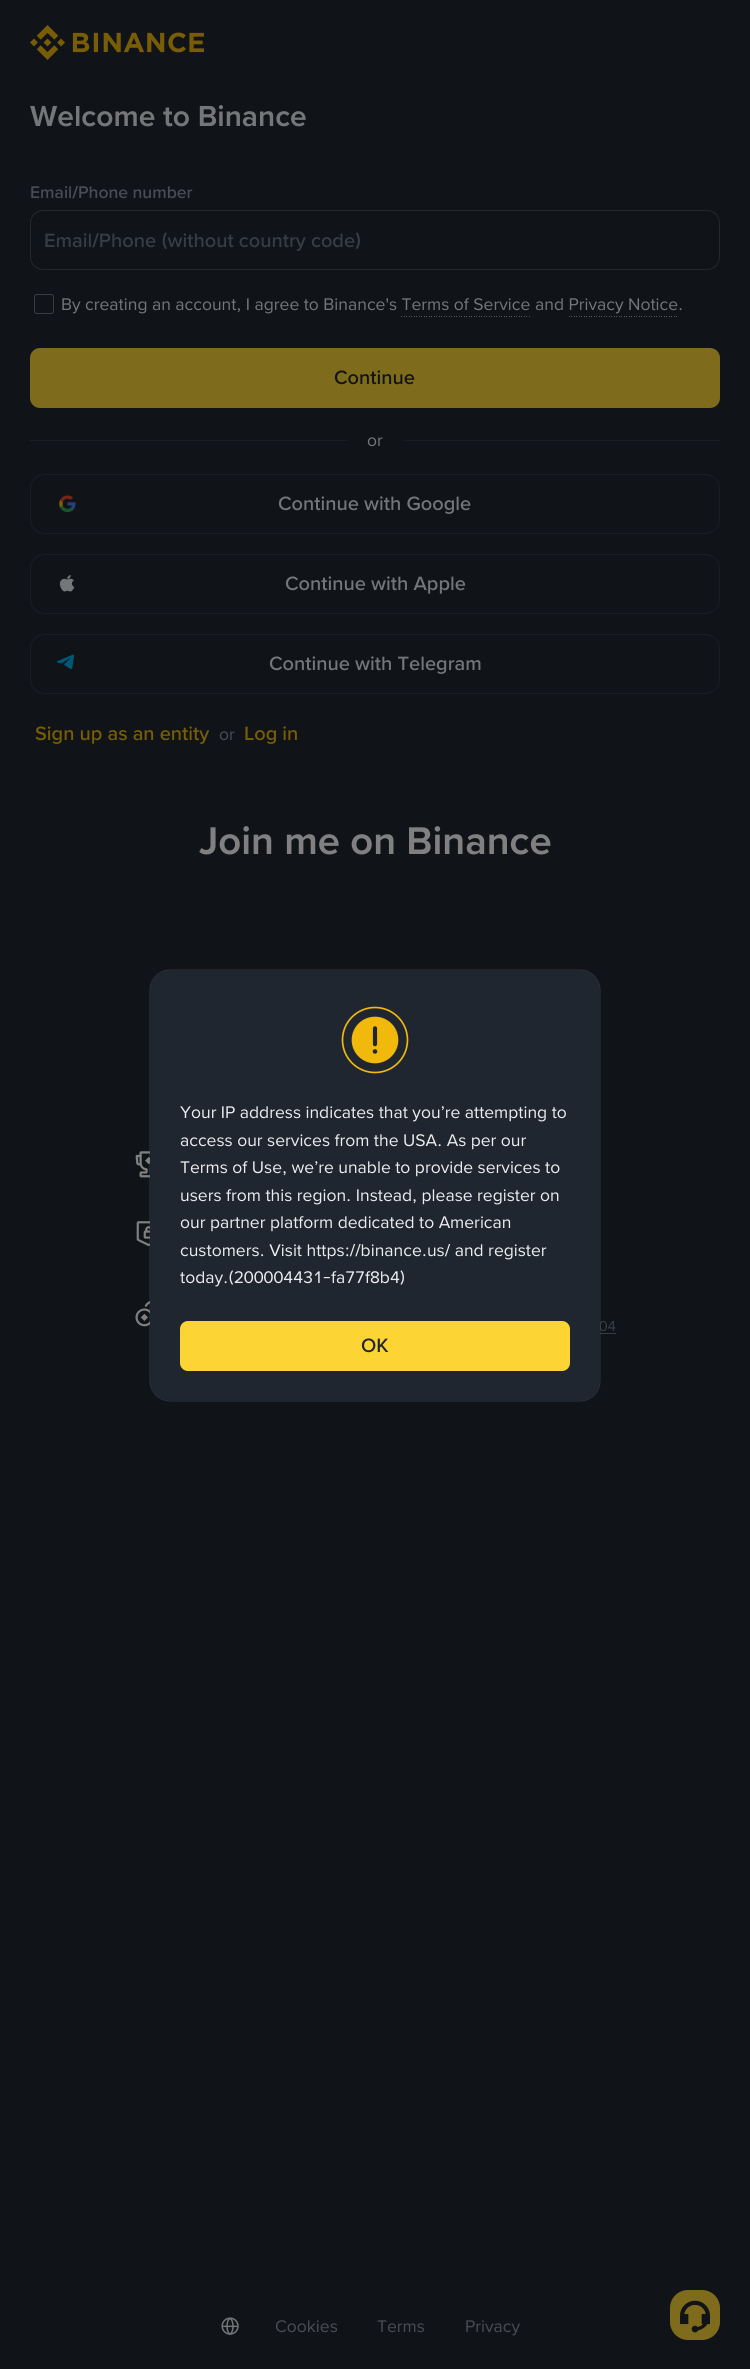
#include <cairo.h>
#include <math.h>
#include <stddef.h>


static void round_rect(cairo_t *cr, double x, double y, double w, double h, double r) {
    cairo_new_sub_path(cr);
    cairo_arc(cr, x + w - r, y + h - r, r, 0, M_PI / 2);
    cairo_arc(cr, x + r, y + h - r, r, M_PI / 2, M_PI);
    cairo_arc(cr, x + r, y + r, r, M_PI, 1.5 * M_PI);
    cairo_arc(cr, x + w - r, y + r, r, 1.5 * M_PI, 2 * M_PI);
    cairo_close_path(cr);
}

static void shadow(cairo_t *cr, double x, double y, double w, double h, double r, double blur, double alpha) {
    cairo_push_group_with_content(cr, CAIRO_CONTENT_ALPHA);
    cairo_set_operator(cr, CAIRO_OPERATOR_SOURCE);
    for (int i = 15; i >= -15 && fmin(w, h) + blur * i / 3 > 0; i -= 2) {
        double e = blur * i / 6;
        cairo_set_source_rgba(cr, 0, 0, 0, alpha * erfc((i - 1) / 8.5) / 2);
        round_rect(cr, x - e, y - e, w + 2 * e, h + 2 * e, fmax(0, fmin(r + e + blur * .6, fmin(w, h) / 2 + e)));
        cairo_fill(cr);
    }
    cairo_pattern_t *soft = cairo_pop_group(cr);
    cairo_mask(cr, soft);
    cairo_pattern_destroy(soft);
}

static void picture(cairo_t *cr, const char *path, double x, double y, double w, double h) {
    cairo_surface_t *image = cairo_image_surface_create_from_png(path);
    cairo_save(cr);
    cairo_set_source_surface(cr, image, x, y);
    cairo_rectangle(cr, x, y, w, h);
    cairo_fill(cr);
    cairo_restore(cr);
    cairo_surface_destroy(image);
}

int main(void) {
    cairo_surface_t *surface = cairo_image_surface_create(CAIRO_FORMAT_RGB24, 750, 2369);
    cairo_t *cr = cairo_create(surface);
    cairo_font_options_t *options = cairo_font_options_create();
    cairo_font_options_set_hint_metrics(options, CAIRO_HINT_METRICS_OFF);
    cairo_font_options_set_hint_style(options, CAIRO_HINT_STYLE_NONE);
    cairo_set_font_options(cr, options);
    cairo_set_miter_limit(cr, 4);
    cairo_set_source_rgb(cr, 0.063, 0.075, 0.094);
    cairo_paint(cr);
    picture(cr, "img1.png", 30, 25, 175, 35);
    cairo_select_font_face(cr, "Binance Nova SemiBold", CAIRO_FONT_SLANT_NORMAL, CAIRO_FONT_WEIGHT_NORMAL);
    cairo_set_font_size(cr, 30);
    cairo_set_source_rgb(cr, 0.459, 0.463, 0.471);
    cairo_move_to(cr, 30, 126);
    cairo_show_text(cr, "Welcome to Binance");
    cairo_select_font_face(cr, "Binance Nova Medium", CAIRO_FONT_SLANT_NORMAL, CAIRO_FONT_WEIGHT_NORMAL);
    cairo_set_font_size(cr, 17.5);
    cairo_set_source_rgb(cr, 0.286, 0.302, 0.325);
    cairo_move_to(cr, 30, 198);
    cairo_show_text(cr, "Email/Phone number");
    round_rect(cr, 30.5, 210.5, 689, 59, 12.5);
    cairo_set_source_rgb(cr, 0.141, 0.153, 0.173);
    cairo_set_line_width(cr, 1);
    cairo_stroke(cr);
    cairo_set_font_size(cr, 20);
    cairo_set_source_rgb(cr, 0.22, 0.239, 0.271);
    cairo_move_to(cr, 44, 247);
    cairo_show_text(cr, "Email/Phone (without country code)");
    round_rect(cr, 34.5, 294.5, 19, 19, 2.5);
    cairo_stroke(cr);
    cairo_select_font_face(cr, "Binance Nova", CAIRO_FONT_SLANT_NORMAL, CAIRO_FONT_WEIGHT_NORMAL);
    cairo_set_font_size(cr, 17.5);
    cairo_set_source_rgb(cr, 0.459, 0.463, 0.471);
    cairo_move_to(cr, 61, 310);
    cairo_show_text(cr, "By creating an account, I agree to Binance's Terms of Service");
    cairo_move_to(cr, 535, 310);
    cairo_show_text(cr, "and Privacy Notice");
    cairo_move_to(cr, 678, 310);
    cairo_show_text(cr, ".");
    picture(cr, "img2.png", 401, 316, 129, 1);
    picture(cr, "img3.png", 569, 316, 108, 1);
    cairo_set_source_rgb(cr, 0.494, 0.42, 0.106);
    round_rect(cr, 30, 348, 690, 60, 10);
    cairo_fill(cr);
    cairo_select_font_face(cr, "Binance Nova Medium", CAIRO_FONT_SLANT_NORMAL, CAIRO_FONT_WEIGHT_NORMAL);
    cairo_set_font_size(cr, 20);
    cairo_set_source_rgb(cr, 0.063, 0.075, 0.094);
    cairo_move_to(cr, 334, 384);
    cairo_show_text(cr, "Continue");
    cairo_set_source_rgb(cr, 0.102, 0.118, 0.141);
    cairo_rectangle(cr, 30, 440, 318, 1);
    cairo_fill(cr);
    cairo_select_font_face(cr, "Binance Nova", CAIRO_FONT_SLANT_NORMAL, CAIRO_FONT_WEIGHT_NORMAL);
    cairo_set_font_size(cr, 17.5);
    cairo_set_source_rgb(cr, 0.459, 0.463, 0.471);
    cairo_move_to(cr, 367, 446);
    cairo_show_text(cr, "or");
    cairo_set_source_rgb(cr, 0.102, 0.118, 0.141);
    cairo_rectangle(cr, 403, 440, 317, 1);
    cairo_fill(cr);
    round_rect(cr, 30.5, 474.5, 689, 59, 14.5);
    cairo_stroke(cr);
    picture(cr, "img4.png", 59, 495, 17, 17);
    cairo_select_font_face(cr, "Binance Nova Medium", CAIRO_FONT_SLANT_NORMAL, CAIRO_FONT_WEIGHT_NORMAL);
    cairo_set_font_size(cr, 20);
    cairo_set_source_rgb(cr, 0.459, 0.463, 0.471);
    cairo_move_to(cr, 278, 510);
    cairo_show_text(cr, "Continue with Google");
    round_rect(cr, 30.5, 554.5, 689, 59, 14.5);
    cairo_set_source_rgb(cr, 0.102, 0.118, 0.141);
    cairo_stroke(cr);
    picture(cr, "img5.png", 59, 575, 16, 17);
    cairo_set_source_rgb(cr, 0.459, 0.463, 0.471);
    cairo_move_to(cr, 285, 590);
    cairo_show_text(cr, "Continue with Apple");
    round_rect(cr, 30.5, 634.5, 689, 59, 14.5);
    cairo_set_source_rgb(cr, 0.102, 0.118, 0.141);
    cairo_stroke(cr);
    picture(cr, "img6.png", 56, 654, 19, 16);
    cairo_set_source_rgb(cr, 0.459, 0.463, 0.471);
    cairo_move_to(cr, 269, 670);
    cairo_show_text(cr, "Continue with Telegram");
    cairo_set_source_rgb(cr, 0.471, 0.365, 0.024);
    cairo_move_to(cr, 35, 740);
    cairo_show_text(cr, "Sign up as an entity");
    cairo_select_font_face(cr, "Binance Nova", CAIRO_FONT_SLANT_NORMAL, CAIRO_FONT_WEIGHT_NORMAL);
    cairo_set_font_size(cr, 17.5);
    cairo_set_source_rgb(cr, 0.286, 0.302, 0.325);
    cairo_move_to(cr, 219, 740);
    cairo_show_text(cr, "or");
    cairo_select_font_face(cr, "Binance Nova Medium", CAIRO_FONT_SLANT_NORMAL, CAIRO_FONT_WEIGHT_NORMAL);
    cairo_set_font_size(cr, 20);
    cairo_set_source_rgb(cr, 0.471, 0.365, 0.024);
    cairo_move_to(cr, 244, 740);
    cairo_show_text(cr, "Log in");
    cairo_select_font_face(cr, "Binance Nova SemiBold", CAIRO_FONT_SLANT_NORMAL, CAIRO_FONT_WEIGHT_NORMAL);
    cairo_set_font_size(cr, 40);
    cairo_set_source_rgb(cr, 0.502, 0.502, 0.502);
    cairo_move_to(cr, 199, 854);
    cairo_show_text(cr, "Join me on Binance");
    picture(cr, "img7.png", 135, 1151, 15, 27);
    picture(cr, "img8.png", 136, 1221, 14, 26);
    picture(cr, "img9.png", 135, 1301, 15, 26);
    cairo_select_font_face(cr, "Binance Nova", CAIRO_FONT_SLANT_NORMAL, CAIRO_FONT_WEIGHT_NORMAL);
    cairo_set_font_size(cr, 15);
    cairo_set_source_rgb(cr, 0.22, 0.239, 0.271);
    cairo_move_to(cr, 599, 1331);
    cairo_show_text(cr, "04");
    cairo_rectangle(cr, 600, 1333, 16, 1);
    cairo_fill(cr);
    cairo_set_source_rgb(cr, 0.369, 0.4, 0.451);
    shadow(cr, 150, 970, 450, 431, 20, 0.5, 0.8);
    cairo_set_source_rgb(cr, 0.125, 0.149, 0.188);
    round_rect(cr, 150, 970, 450, 431, 20);
    cairo_fill(cr);
    picture(cr, "img10.png", 341, 1006, 68, 68);
    cairo_set_font_size(cr, 17.5);
    cairo_set_source_rgb(cr, 0.918, 0.925, 0.937);
    cairo_move_to(cr, 180, 1118);
    cairo_show_text(cr, "Your IP address indicates that you’re attempting to");
    cairo_move_to(cr, 180, 1146);
    cairo_show_text(cr, "access our services from the USA. As per our");
    cairo_move_to(cr, 180, 1173);
    cairo_show_text(cr, "Terms of Use, we’re unable to provide services to");
    cairo_move_to(cr, 180, 1201);
    cairo_show_text(cr, "users from this region. Instead, please register on");
    cairo_move_to(cr, 180, 1228);
    cairo_show_text(cr, "our partner platform dedicated to American");
    cairo_move_to(cr, 180, 1256);
    cairo_show_text(cr, "customers. Visit https://binance.us/ and register");
    cairo_move_to(cr, 180, 1283);
    cairo_show_text(cr, "today.(200004431-fa77f8b4)");
    cairo_set_source_rgb(cr, 0.988, 0.835, 0.208);
    round_rect(cr, 180, 1321, 390, 50, 8);
    cairo_fill(cr);
    cairo_select_font_face(cr, "Binance Nova Medium", CAIRO_FONT_SLANT_NORMAL, CAIRO_FONT_WEIGHT_NORMAL);
    cairo_set_font_size(cr, 20);
    cairo_set_source_rgb(cr, 0.125, 0.149, 0.188);
    cairo_move_to(cr, 361, 1352);
    cairo_show_text(cr, "OK");
    picture(cr, "img11.png", 221, 2317, 18, 18);
    cairo_select_font_face(cr, "Binance Nova", CAIRO_FONT_SLANT_NORMAL, CAIRO_FONT_WEIGHT_NORMAL);
    cairo_set_font_size(cr, 17.5);
    cairo_set_source_rgb(cr, 0.286, 0.302, 0.325);
    cairo_move_to(cr, 275, 2332);
    cairo_show_text(cr, "Cookies");
    cairo_move_to(cr, 377, 2332);
    cairo_show_text(cr, "Terms");
    cairo_move_to(cr, 465, 2332);
    cairo_show_text(cr, "Privacy");
    cairo_set_source_rgb(cr, 0.494, 0.42, 0.106);
    round_rect(cr, 670, 2290, 50, 50, 18);
    cairo_fill(cr);
    picture(cr, "img12.png", 680, 2300, 30, 33);
    cairo_surface_write_to_png(surface, "page.png");
    cairo_font_options_destroy(options);
    cairo_destroy(cr);
    cairo_surface_destroy(surface);
    return 0;
}
